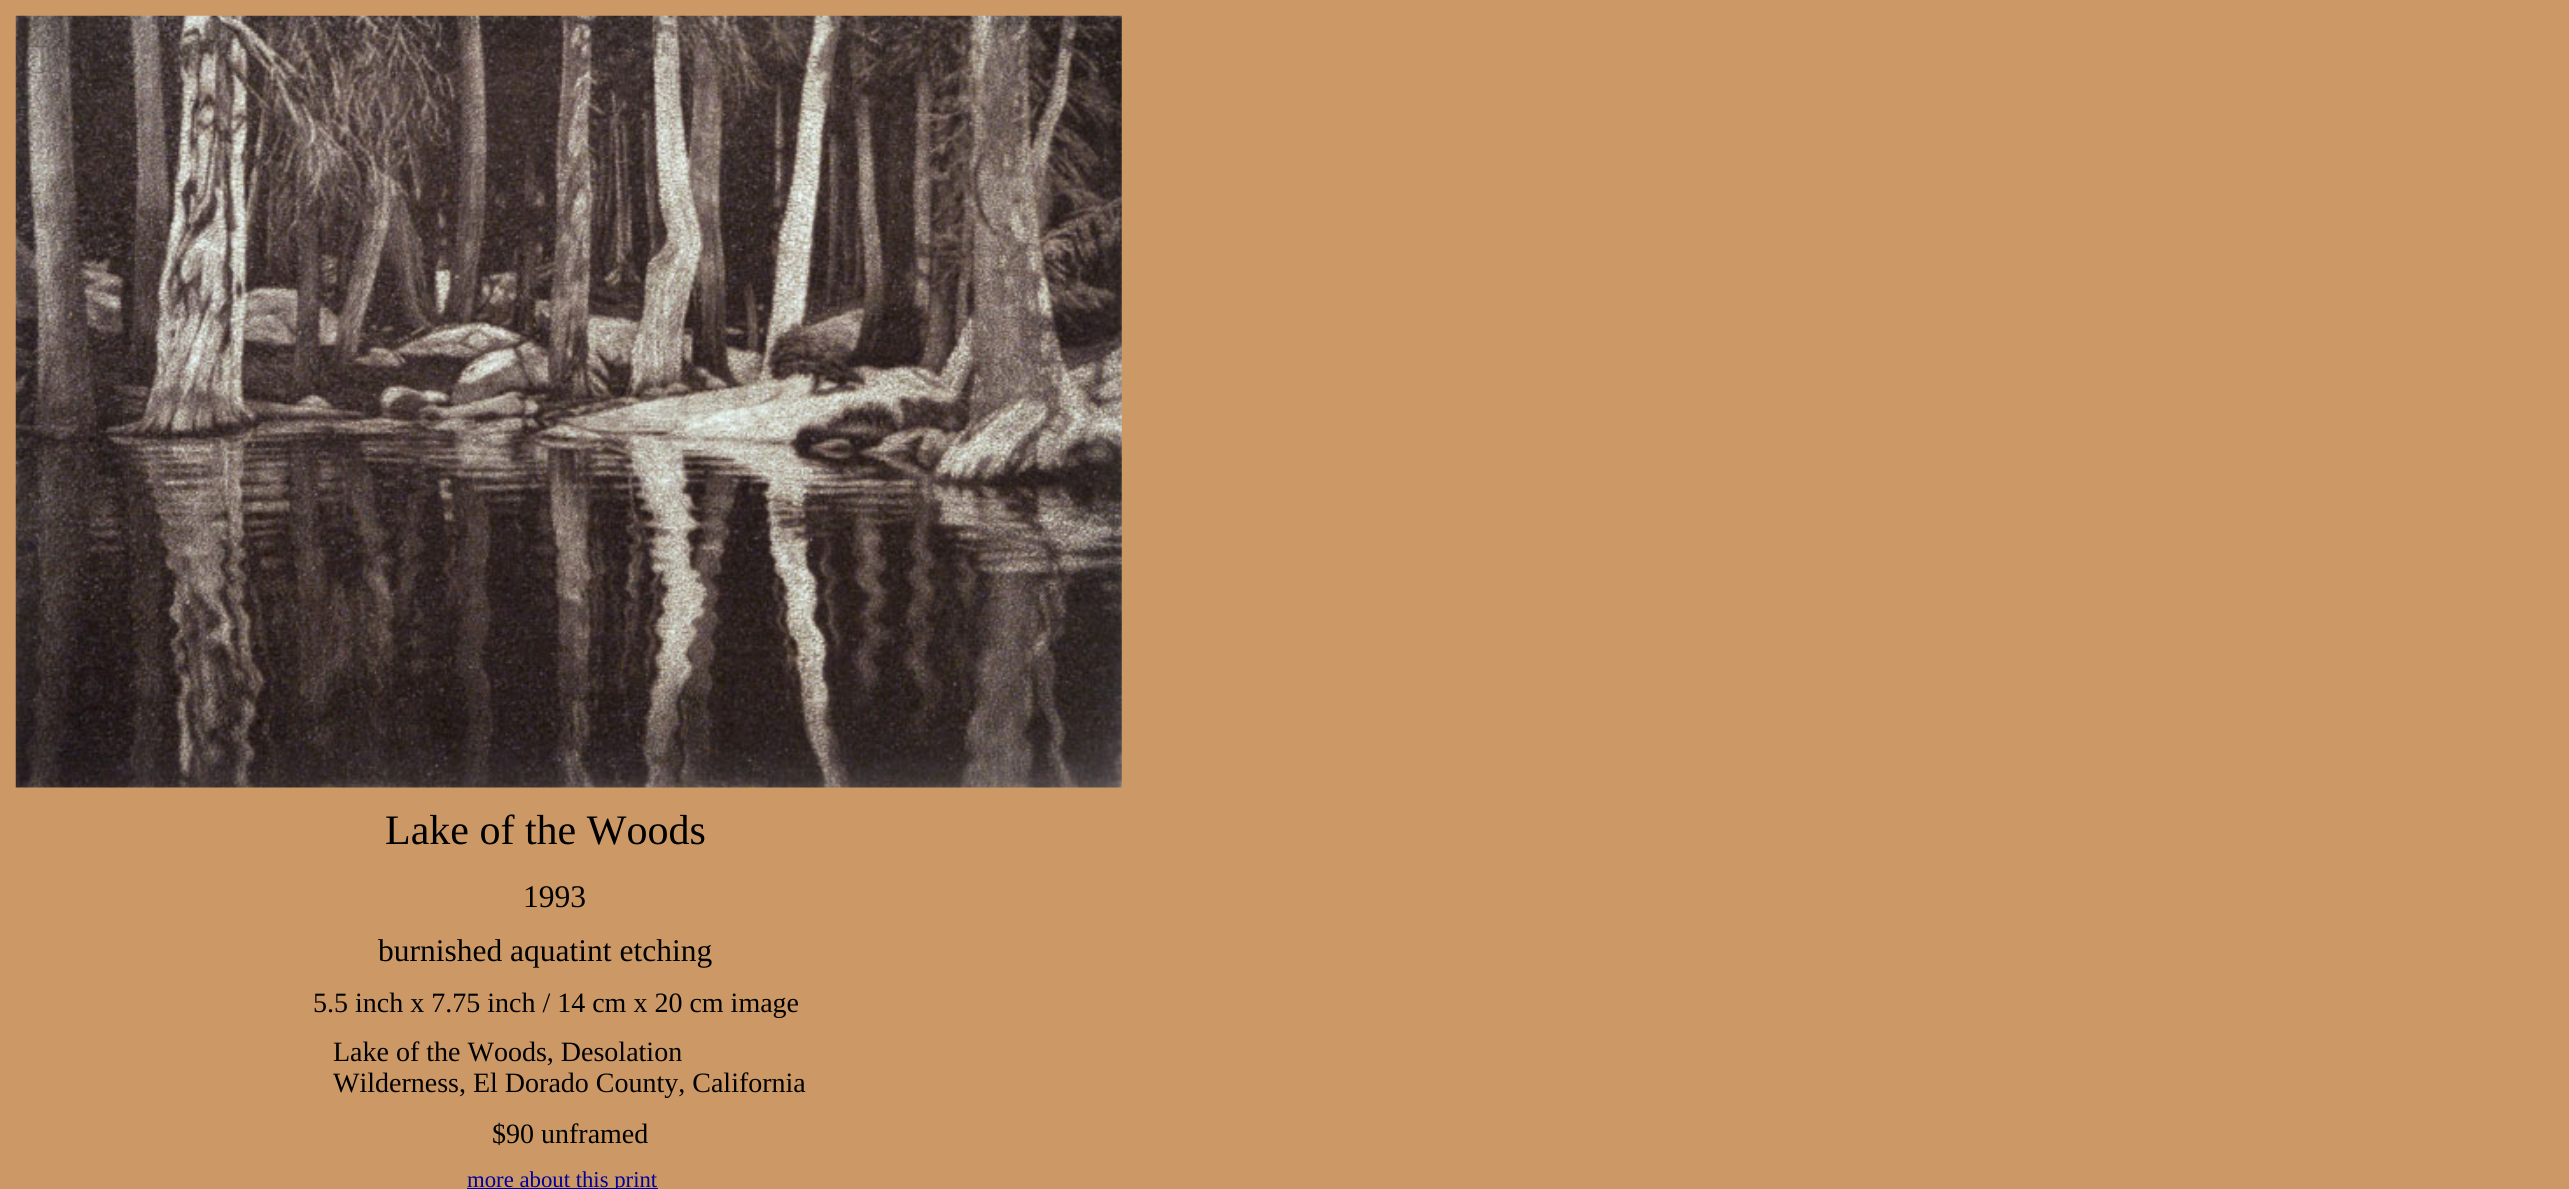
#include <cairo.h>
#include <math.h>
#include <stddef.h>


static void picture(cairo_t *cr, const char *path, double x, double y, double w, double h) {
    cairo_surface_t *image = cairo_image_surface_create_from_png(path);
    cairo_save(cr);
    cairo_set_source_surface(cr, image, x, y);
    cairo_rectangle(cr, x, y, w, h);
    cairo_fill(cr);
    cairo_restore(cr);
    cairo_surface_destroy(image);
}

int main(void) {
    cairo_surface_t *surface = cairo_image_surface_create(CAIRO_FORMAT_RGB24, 2569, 1189);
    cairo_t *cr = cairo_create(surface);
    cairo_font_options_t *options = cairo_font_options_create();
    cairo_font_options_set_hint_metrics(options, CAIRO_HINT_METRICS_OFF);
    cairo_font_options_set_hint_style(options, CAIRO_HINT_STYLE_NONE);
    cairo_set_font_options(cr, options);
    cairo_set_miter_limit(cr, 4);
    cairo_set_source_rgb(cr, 0.8, 0.6, 0.4);
    cairo_paint(cr);
    picture(cr, "img1.png", 15, 15, 1107, 773);
    cairo_select_font_face(cr, "Liberation Serif", CAIRO_FONT_SLANT_NORMAL, CAIRO_FONT_WEIGHT_NORMAL);
    cairo_set_font_size(cr, 42);
    cairo_set_source_rgb(cr, 0, 0, 0);
    cairo_move_to(cr, 385, 844);
    cairo_show_text(cr, "Lake of the Woods");
    cairo_set_font_size(cr, 31.5);
    cairo_move_to(cr, 523, 907);
    cairo_show_text(cr, "1993");
    cairo_move_to(cr, 378, 961);
    cairo_show_text(cr, "burnished aquatint etching");
    cairo_set_font_size(cr, 28);
    cairo_move_to(cr, 313, 1012);
    cairo_show_text(cr, "5.5 inch x 7.75 inch / 14 cm x 20 cm image");
    cairo_move_to(cr, 333, 1061);
    cairo_show_text(cr, "Lake of the Woods, Desolation");
    cairo_move_to(cr, 333, 1092);
    cairo_show_text(cr, "Wilderness, El Dorado County, California");
    cairo_move_to(cr, 492, 1143);
    cairo_show_text(cr, "$90 unframed");
    cairo_set_source_rgb(cr, 0, 0, 0.6);
    cairo_rectangle(cr, 467, 1188, 191, 1);
    cairo_fill(cr);
    cairo_set_font_size(cr, 22.75);
    cairo_move_to(cr, 467, 1187);
    cairo_show_text(cr, "more about this print");
    cairo_surface_write_to_png(surface, "page.png");
    cairo_font_options_destroy(options);
    cairo_destroy(cr);
    cairo_surface_destroy(surface);
    return 0;
}
